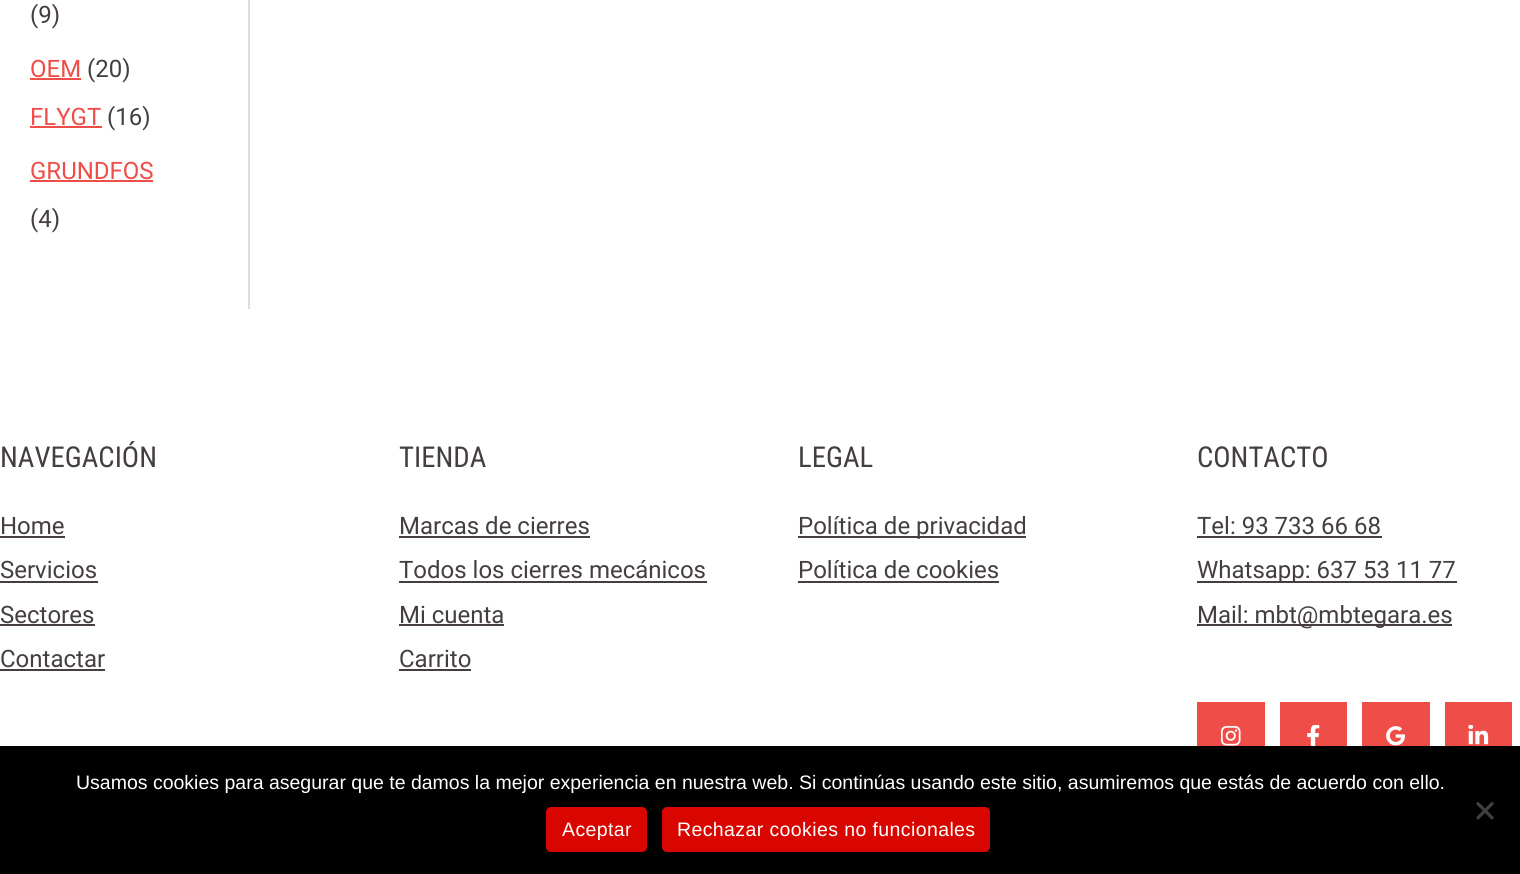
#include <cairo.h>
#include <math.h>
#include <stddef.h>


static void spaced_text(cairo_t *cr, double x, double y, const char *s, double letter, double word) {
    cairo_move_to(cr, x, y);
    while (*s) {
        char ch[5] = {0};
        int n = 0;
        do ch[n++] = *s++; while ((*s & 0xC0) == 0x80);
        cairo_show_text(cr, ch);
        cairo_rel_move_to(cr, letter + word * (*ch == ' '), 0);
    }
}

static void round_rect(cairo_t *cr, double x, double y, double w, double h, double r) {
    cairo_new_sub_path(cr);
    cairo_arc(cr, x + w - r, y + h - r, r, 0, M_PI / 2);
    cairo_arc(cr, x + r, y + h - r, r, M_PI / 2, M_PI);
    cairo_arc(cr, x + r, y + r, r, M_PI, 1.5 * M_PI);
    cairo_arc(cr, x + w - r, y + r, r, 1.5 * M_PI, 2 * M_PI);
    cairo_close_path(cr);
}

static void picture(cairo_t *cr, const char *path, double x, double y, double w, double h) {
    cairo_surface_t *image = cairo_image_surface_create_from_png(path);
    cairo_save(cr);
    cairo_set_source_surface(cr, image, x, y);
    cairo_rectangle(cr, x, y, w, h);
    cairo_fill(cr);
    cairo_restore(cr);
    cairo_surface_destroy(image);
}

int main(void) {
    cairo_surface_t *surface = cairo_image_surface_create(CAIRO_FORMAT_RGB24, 1520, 874);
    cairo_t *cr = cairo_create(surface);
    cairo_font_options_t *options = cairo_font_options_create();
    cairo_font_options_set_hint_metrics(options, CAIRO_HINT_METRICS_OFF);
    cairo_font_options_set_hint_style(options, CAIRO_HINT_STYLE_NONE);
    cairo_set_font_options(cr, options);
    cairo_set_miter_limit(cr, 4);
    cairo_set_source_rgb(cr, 1, 1, 1);
    cairo_paint(cr);
    cairo_set_source_rgb(cr, 0.867, 0.867, 0.867);
    cairo_rectangle(cr, 248, 0, 2, 309);
    cairo_fill(cr);
    cairo_select_font_face(cr, "Roboto", CAIRO_FONT_SLANT_NORMAL, CAIRO_FONT_WEIGHT_NORMAL);
    cairo_set_font_size(cr, 24);
    cairo_set_source_rgb(cr, 0.271, 0.243, 0.243);
    cairo_move_to(cr, 30, 23);
    cairo_show_text(cr, "(9)");
    cairo_set_source_rgb(cr, 0.937, 0.302, 0.282);
    cairo_move_to(cr, 30, 77);
    cairo_show_text(cr, "OEM");
    cairo_rectangle(cr, 30, 78, 51, 2);
    cairo_fill(cr);
    cairo_set_source_rgb(cr, 0.271, 0.243, 0.243);
    cairo_move_to(cr, 87, 77);
    cairo_show_text(cr, "(20)");
    cairo_set_source_rgb(cr, 0.937, 0.302, 0.282);
    cairo_move_to(cr, 30, 125);
    cairo_show_text(cr, "FLYGT");
    cairo_rectangle(cr, 30, 126, 72, 2);
    cairo_fill(cr);
    cairo_set_source_rgb(cr, 0.271, 0.243, 0.243);
    cairo_move_to(cr, 107, 125);
    cairo_show_text(cr, "(16)");
    cairo_set_source_rgb(cr, 0.937, 0.302, 0.282);
    cairo_move_to(cr, 30, 179);
    cairo_show_text(cr, "GRUNDFOS");
    cairo_rectangle(cr, 30, 180, 123, 2);
    cairo_fill(cr);
    cairo_set_source_rgb(cr, 0.271, 0.243, 0.243);
    cairo_move_to(cr, 30, 227);
    cairo_show_text(cr, "(4)");
    cairo_select_font_face(cr, "Roboto Condensed", CAIRO_FONT_SLANT_NORMAL, CAIRO_FONT_WEIGHT_NORMAL);
    cairo_set_font_size(cr, 28.75);
    cairo_move_to(cr, 0, 467);
    cairo_show_text(cr, "NAVEGACIÓN");
    cairo_select_font_face(cr, "Roboto", CAIRO_FONT_SLANT_NORMAL, CAIRO_FONT_WEIGHT_NORMAL);
    cairo_set_font_size(cr, 24);
    cairo_move_to(cr, 0, 534);
    cairo_show_text(cr, "Home");
    cairo_rectangle(cr, 0, 536, 65, 2);
    cairo_fill(cr);
    cairo_move_to(cr, 0, 578);
    cairo_show_text(cr, "Servicios");
    cairo_rectangle(cr, 0, 581, 98, 2);
    cairo_fill(cr);
    cairo_move_to(cr, 0, 623);
    cairo_show_text(cr, "Sectores");
    cairo_rectangle(cr, 0, 624, 95, 2);
    cairo_fill(cr);
    cairo_move_to(cr, 0, 667);
    cairo_show_text(cr, "Contactar");
    cairo_rectangle(cr, 0, 669, 105, 2);
    cairo_fill(cr);
    cairo_select_font_face(cr, "Roboto Condensed", CAIRO_FONT_SLANT_NORMAL, CAIRO_FONT_WEIGHT_NORMAL);
    cairo_set_font_size(cr, 28.75);
    cairo_move_to(cr, 399, 467);
    cairo_show_text(cr, "TIENDA");
    cairo_select_font_face(cr, "Roboto", CAIRO_FONT_SLANT_NORMAL, CAIRO_FONT_WEIGHT_NORMAL);
    cairo_set_font_size(cr, 24);
    cairo_move_to(cr, 399, 534);
    cairo_show_text(cr, "Marcas de cierres");
    cairo_rectangle(cr, 399, 536, 191, 2);
    cairo_fill(cr);
    cairo_move_to(cr, 399, 578);
    cairo_show_text(cr, "Todos los cierres mecánicos");
    cairo_rectangle(cr, 399, 581, 308, 2);
    cairo_fill(cr);
    cairo_move_to(cr, 399, 623);
    cairo_show_text(cr, "Mi cuenta");
    cairo_rectangle(cr, 399, 624, 105, 2);
    cairo_fill(cr);
    cairo_move_to(cr, 399, 667);
    cairo_show_text(cr, "Carrito");
    cairo_rectangle(cr, 399, 669, 72, 2);
    cairo_fill(cr);
    cairo_select_font_face(cr, "Roboto Condensed", CAIRO_FONT_SLANT_NORMAL, CAIRO_FONT_WEIGHT_NORMAL);
    cairo_set_font_size(cr, 28.75);
    cairo_move_to(cr, 798, 467);
    cairo_show_text(cr, "LEGAL");
    cairo_rectangle(cr, 798, 536, 228, 2);
    cairo_fill(cr);
    cairo_select_font_face(cr, "Roboto", CAIRO_FONT_SLANT_NORMAL, CAIRO_FONT_WEIGHT_NORMAL);
    cairo_set_font_size(cr, 24);
    cairo_move_to(cr, 798, 534);
    cairo_show_text(cr, "Política de privacidad");
    cairo_move_to(cr, 798, 578);
    cairo_show_text(cr, "Política de cookies");
    cairo_rectangle(cr, 798, 581, 201, 2);
    cairo_fill(cr);
    cairo_select_font_face(cr, "Roboto Condensed", CAIRO_FONT_SLANT_NORMAL, CAIRO_FONT_WEIGHT_NORMAL);
    cairo_set_font_size(cr, 28.75);
    cairo_move_to(cr, 1197, 467);
    cairo_show_text(cr, "CONTACTO");
    cairo_select_font_face(cr, "Roboto", CAIRO_FONT_SLANT_NORMAL, CAIRO_FONT_WEIGHT_NORMAL);
    cairo_set_font_size(cr, 24);
    cairo_move_to(cr, 1197, 534);
    cairo_show_text(cr, "Tel: 93 733 66 68");
    cairo_rectangle(cr, 1197, 536, 185, 2);
    cairo_fill(cr);
    cairo_rectangle(cr, 1197, 581, 260, 2);
    cairo_fill(cr);
    cairo_move_to(cr, 1197, 578);
    cairo_show_text(cr, "Whatsapp: 637 53 11 77");
    cairo_rectangle(cr, 1197, 624, 255, 2);
    cairo_fill(cr);
    cairo_move_to(cr, 1197, 623);
    cairo_show_text(cr, "Mail: mbt@mbtegara.es");
    cairo_set_source_rgb(cr, 0.937, 0.302, 0.282);
    cairo_rectangle(cr, 1197, 702, 68, 44);
    cairo_fill(cr);
    picture(cr, "img1.png", 1220, 726, 21, 20);
    cairo_rectangle(cr, 1280, 702, 67, 44);
    cairo_fill(cr);
    picture(cr, "img2.png", 1307, 725, 13, 21);
    cairo_rectangle(cr, 1362, 702, 68, 44);
    cairo_fill(cr);
    picture(cr, "img3.png", 1386, 726, 19, 20);
    cairo_rectangle(cr, 1445, 702, 67, 44);
    cairo_fill(cr);
    picture(cr, "img4.png", 1468, 725, 21, 20);
    cairo_set_source_rgb(cr, 0, 0, 0);
    cairo_rectangle(cr, 0, 746, 1520, 128);
    cairo_fill(cr);
    cairo_select_font_face(cr, "Liberation Sans", CAIRO_FONT_SLANT_NORMAL, CAIRO_FONT_WEIGHT_NORMAL);
    cairo_set_font_size(cr, 19.5);
    cairo_set_source_rgb(cr, 1, 1, 1);
    cairo_move_to(cr, 76, 789);
    cairo_show_text(cr, "Usamos cookies para asegurar que te damos la mejor experiencia en nuestra web. Si continúas usando este sitio, asumiremos que estás de acuerdo con ello.");
    cairo_set_source_rgb(cr, 0.251, 0.251, 0.251);
    cairo_new_path(cr);
    cairo_move_to(cr, 1492, 801.5);
    cairo_line_to(cr, 1494, 804);
    cairo_line_to(cr, 1478, 820);
    cairo_line_to(cr, 1476, 817.5);
    cairo_close_path(cr);
    cairo_fill(cr);
    cairo_new_path(cr);
    cairo_move_to(cr, 1476, 804);
    cairo_line_to(cr, 1478, 801.5);
    cairo_line_to(cr, 1494, 817.5);
    cairo_line_to(cr, 1492, 820);
    cairo_close_path(cr);
    cairo_fill(cr);
    cairo_set_source_rgb(cr, 0.851, 0.027, 0);
    round_rect(cr, 546, 807, 101, 45, 5);
    cairo_fill(cr);
    cairo_set_source_rgb(cr, 1, 1, 1);
    spaced_text(cr, 562, 836, "Aceptar", 0.4, 0);
    cairo_set_source_rgb(cr, 0.851, 0.027, 0);
    round_rect(cr, 662, 807, 328, 45, 5);
    cairo_fill(cr);
    cairo_set_source_rgb(cr, 1, 1, 1);
    spaced_text(cr, 677, 836, "Rechazar cookies no funcionales", 0.4, 0);
    cairo_surface_write_to_png(surface, "page.png");
    cairo_font_options_destroy(options);
    cairo_destroy(cr);
    cairo_surface_destroy(surface);
    return 0;
}
